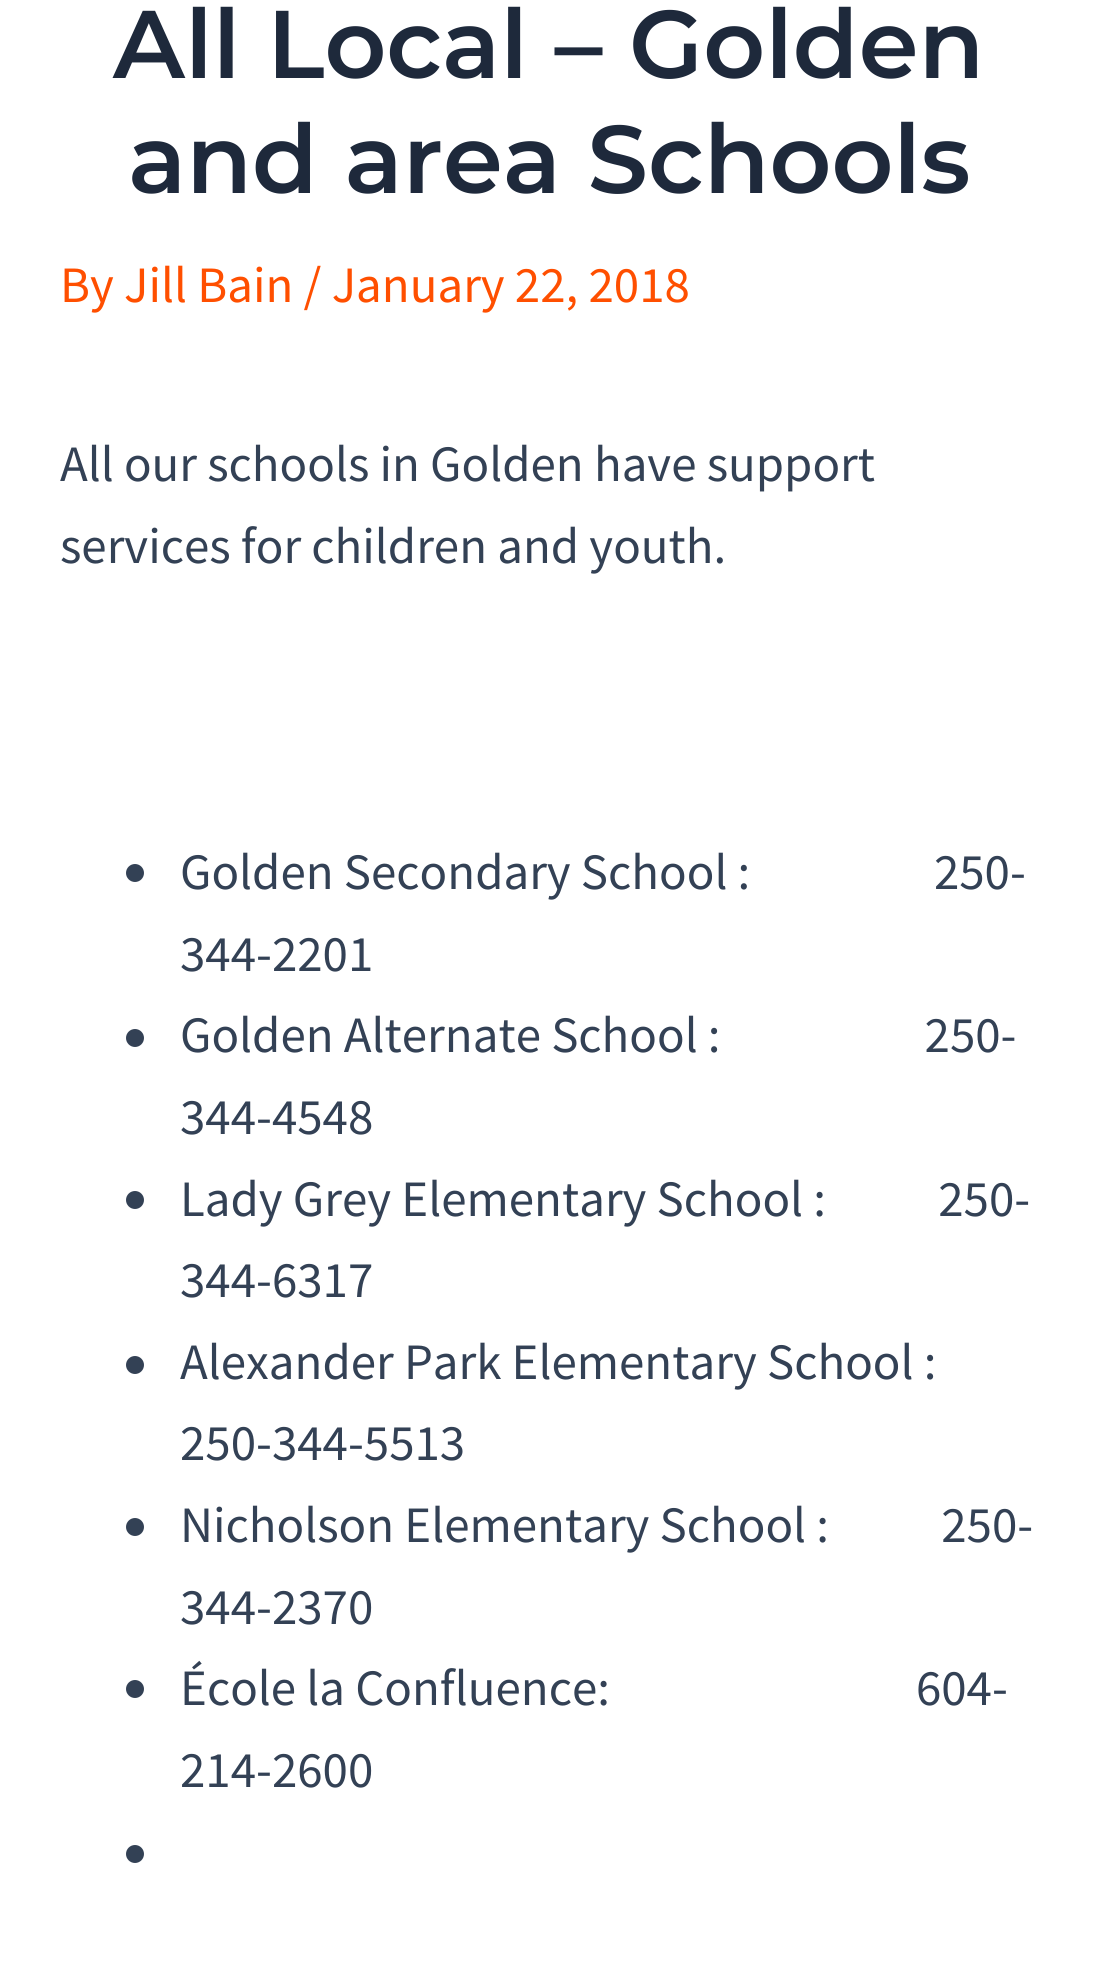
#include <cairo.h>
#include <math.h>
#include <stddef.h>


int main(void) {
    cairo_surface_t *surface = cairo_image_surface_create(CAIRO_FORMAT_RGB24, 1096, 1980);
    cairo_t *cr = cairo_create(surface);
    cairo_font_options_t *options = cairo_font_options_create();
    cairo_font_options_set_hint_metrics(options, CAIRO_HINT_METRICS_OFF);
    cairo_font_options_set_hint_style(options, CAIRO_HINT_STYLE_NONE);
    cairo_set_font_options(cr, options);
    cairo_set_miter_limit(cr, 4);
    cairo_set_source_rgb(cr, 1, 1, 1);
    cairo_paint(cr);
    cairo_select_font_face(cr, "Montserrat SemiBold", CAIRO_FONT_SLANT_NORMAL, CAIRO_FONT_WEIGHT_NORMAL);
    cairo_set_font_size(cr, 96);
    cairo_set_source_rgb(cr, 0.118, 0.161, 0.231);
    cairo_move_to(cr, 113, 78);
    cairo_show_text(cr, "All Local – Golden");
    cairo_move_to(cr, 128, 193);
    cairo_show_text(cr, "and area Schools");
    cairo_select_font_face(cr, "Source Sans Pro", CAIRO_FONT_SLANT_NORMAL, CAIRO_FONT_WEIGHT_NORMAL);
    cairo_set_font_size(cr, 51);
    cairo_set_source_rgb(cr, 1, 0.31, 0);
    cairo_move_to(cr, 60, 302);
    cairo_show_text(cr, "By Jill Bain / January 22, 2018");
    cairo_set_source_rgb(cr, 0.2, 0.255, 0.333);
    cairo_move_to(cr, 60, 481);
    cairo_show_text(cr, "All our schools in Golden have support");
    cairo_move_to(cr, 60, 563);
    cairo_show_text(cr, "services for children and youth.");
    cairo_new_path(cr);
    cairo_arc(cr, 135, 873, 9, 0, 2 * M_PI);
    cairo_fill(cr);
    cairo_move_to(cr, 180, 889);
    cairo_show_text(cr, "Golden Secondary School :                  250-");
    cairo_move_to(cr, 180, 971);
    cairo_show_text(cr, "344-2201");
    cairo_new_path(cr);
    cairo_arc(cr, 135, 1038, 9, 0, 2 * M_PI);
    cairo_fill(cr);
    cairo_move_to(cr, 180, 1052);
    cairo_show_text(cr, "Golden Alternate School :                    250-");
    cairo_move_to(cr, 180, 1134);
    cairo_show_text(cr, "344-4548");
    cairo_new_path(cr);
    cairo_arc(cr, 135, 1200, 9, 0, 2 * M_PI);
    cairo_fill(cr);
    cairo_move_to(cr, 180, 1216);
    cairo_show_text(cr, "Lady Grey Elementary School :           250-");
    cairo_move_to(cr, 180, 1297);
    cairo_show_text(cr, "344-6317");
    cairo_new_path(cr);
    cairo_arc(cr, 135, 1365, 9, 0, 2 * M_PI);
    cairo_fill(cr);
    cairo_move_to(cr, 180, 1379);
    cairo_show_text(cr, "Alexander Park Elementary School :");
    cairo_move_to(cr, 180, 1460);
    cairo_show_text(cr, "250-344-5513");
    cairo_new_path(cr);
    cairo_arc(cr, 135, 1527, 9, 0, 2 * M_PI);
    cairo_fill(cr);
    cairo_move_to(cr, 180, 1542);
    cairo_show_text(cr, "Nicholson Elementary School :           250-");
    cairo_move_to(cr, 180, 1624);
    cairo_show_text(cr, "344-2370");
    cairo_new_path(cr);
    cairo_arc(cr, 135, 1689, 9, 0, 2 * M_PI);
    cairo_fill(cr);
    cairo_move_to(cr, 180, 1705);
    cairo_show_text(cr, "École la Confluence:                              604-");
    cairo_move_to(cr, 180, 1787);
    cairo_show_text(cr, "214-2600");
    cairo_new_path(cr);
    cairo_arc(cr, 135, 1854, 9, 0, 2 * M_PI);
    cairo_fill(cr);
    cairo_surface_write_to_png(surface, "page.png");
    cairo_font_options_destroy(options);
    cairo_destroy(cr);
    cairo_surface_destroy(surface);
    return 0;
}
